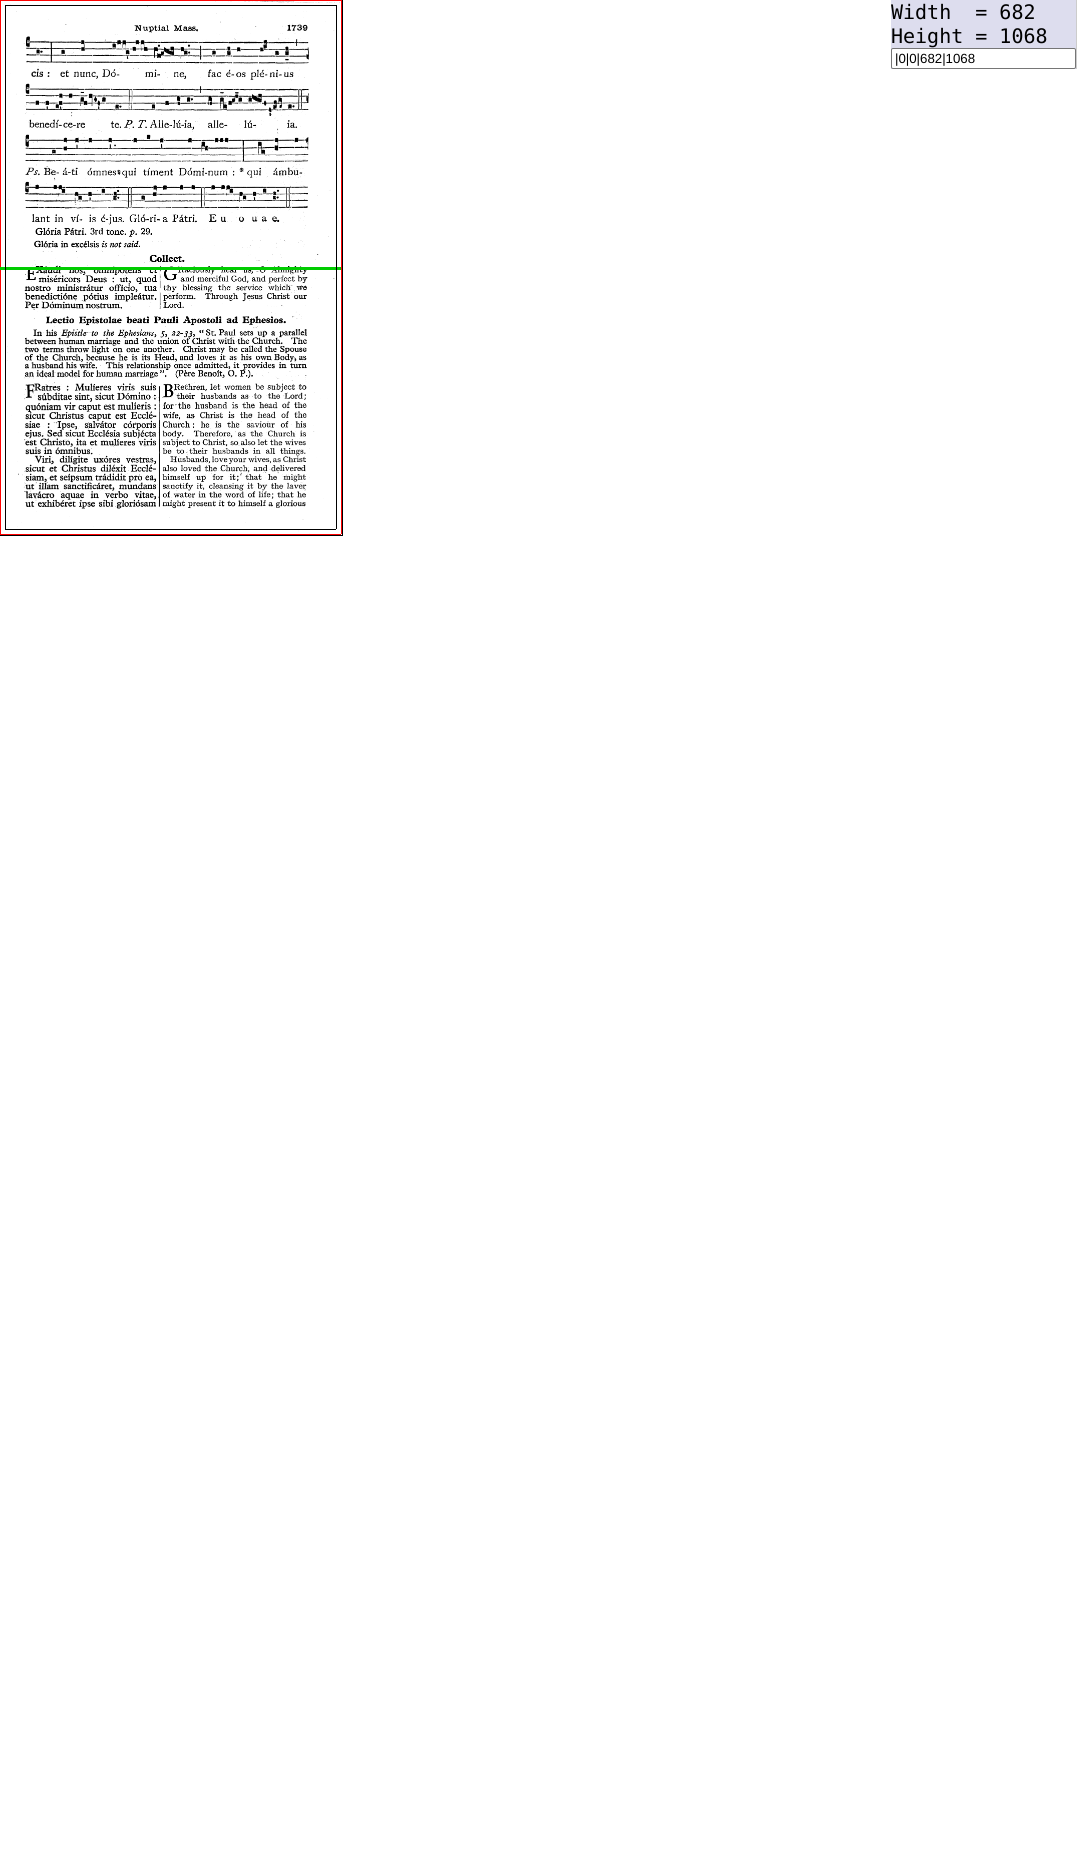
#include <cairo.h>
#include <math.h>
#include <stddef.h>


static void round_rect(cairo_t *cr, double x, double y, double w, double h, double r) {
    cairo_new_sub_path(cr);
    cairo_arc(cr, x + w - r, y + h - r, r, 0, M_PI / 2);
    cairo_arc(cr, x + r, y + h - r, r, M_PI / 2, M_PI);
    cairo_arc(cr, x + r, y + r, r, M_PI, 1.5 * M_PI);
    cairo_arc(cr, x + w - r, y + r, r, 1.5 * M_PI, 2 * M_PI);
    cairo_close_path(cr);
}

static void picture(cairo_t *cr, const char *path, double x, double y, double w, double h) {
    cairo_surface_t *image = cairo_image_surface_create_from_png(path);
    cairo_save(cr);
    cairo_set_source_surface(cr, image, x, y);
    cairo_rectangle(cr, x, y, w, h);
    cairo_fill(cr);
    cairo_restore(cr);
    cairo_surface_destroy(image);
}

int main(void) {
    cairo_surface_t *surface = cairo_image_surface_create(CAIRO_FORMAT_RGB24, 1077, 1854);
    cairo_t *cr = cairo_create(surface);
    cairo_font_options_t *options = cairo_font_options_create();
    cairo_font_options_set_hint_metrics(options, CAIRO_HINT_METRICS_OFF);
    cairo_font_options_set_hint_style(options, CAIRO_HINT_STYLE_NONE);
    cairo_set_font_options(cr, options);
    cairo_set_miter_limit(cr, 4);
    cairo_set_source_rgb(cr, 1, 1, 1);
    cairo_paint(cr);
    cairo_rectangle(cr, 0.5, 0.5, 342, 535);
    cairo_set_source_rgb(cr, 0, 0, 0);
    cairo_set_line_width(cr, 1);
    cairo_stroke(cr);
    picture(cr, "img1.png", 7, 1, 333, 533);
    cairo_set_source_rgb(cr, 1, 0, 0);
    cairo_rectangle(cr, 0, 0, 1, 534);
    cairo_fill(cr);
    cairo_rectangle(cr, 1, 0, 340, 1);
    cairo_fill(cr);
    cairo_rectangle(cr, 341, 0, 1, 534);
    cairo_fill(cr);
    cairo_set_source_rgb(cr, 0.8, 0.8, 0.8);
    cairo_rectangle(cr, 1076, 0, 1, 69);
    cairo_fill(cr);
    cairo_set_source_rgb(cr, 0.867, 0.867, 0.933);
    cairo_rectangle(cr, 891, 0, 185, 69);
    cairo_fill(cr);
    cairo_select_font_face(cr, "DejaVu Sans Mono", CAIRO_FONT_SLANT_NORMAL, CAIRO_FONT_WEIGHT_NORMAL);
    cairo_set_font_size(cr, 20);
    cairo_set_source_rgb(cr, 0, 0, 0);
    cairo_move_to(cr, 891, 19);
    cairo_show_text(cr, "Width  = 682");
    cairo_move_to(cr, 891, 43);
    cairo_show_text(cr, "Height = 1068");
    cairo_set_source_rgb(cr, 1, 1, 1);
    round_rect(cr, 891.5, 48.5, 184, 20, 1.5);
    cairo_fill_preserve(cr);
    cairo_set_source_rgb(cr, 0.463, 0.463, 0.463);
    cairo_stroke(cr);
    cairo_select_font_face(cr, "Liberation Sans", CAIRO_FONT_SLANT_NORMAL, CAIRO_FONT_WEIGHT_NORMAL);
    cairo_set_font_size(cr, 13.25);
    cairo_set_source_rgb(cr, 0, 0, 0);
    cairo_move_to(cr, 895, 63);
    cairo_show_text(cr, "|0|0|682|1068");
    cairo_set_source_rgb(cr, 0, 0.8, 0);
    cairo_rectangle(cr, 0, 267, 341, 3);
    cairo_fill(cr);
    cairo_set_source_rgb(cr, 0, 0, 0);
    cairo_rectangle(cr, 5, 5, 1, 524);
    cairo_fill(cr);
    cairo_rectangle(cr, 6, 5, 330, 1);
    cairo_fill(cr);
    cairo_rectangle(cr, 336, 5, 1, 524);
    cairo_fill(cr);
    cairo_rectangle(cr, 5, 529, 331, 1);
    cairo_fill(cr);
    cairo_set_source_rgb(cr, 1, 0, 0);
    cairo_rectangle(cr, 0, 534, 341, 1);
    cairo_fill(cr);
    cairo_surface_write_to_png(surface, "page.png");
    cairo_font_options_destroy(options);
    cairo_destroy(cr);
    cairo_surface_destroy(surface);
    return 0;
}
